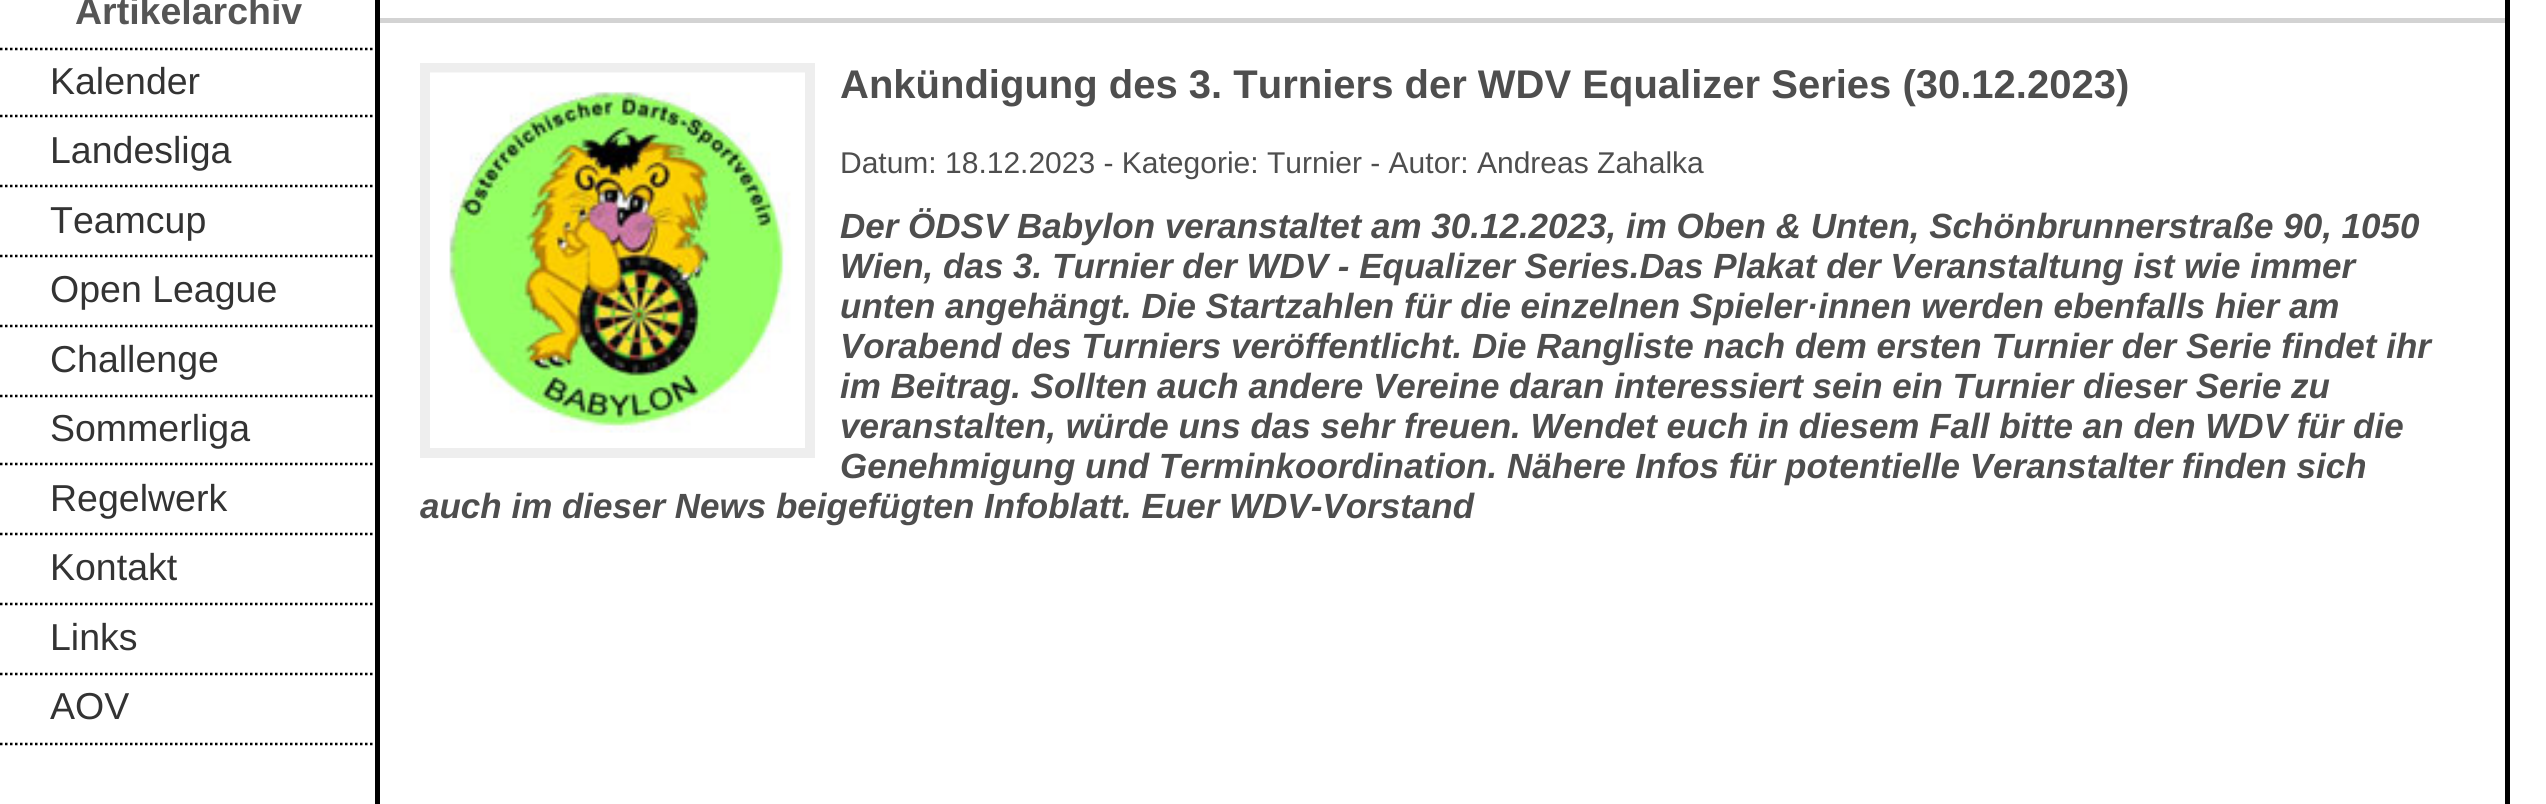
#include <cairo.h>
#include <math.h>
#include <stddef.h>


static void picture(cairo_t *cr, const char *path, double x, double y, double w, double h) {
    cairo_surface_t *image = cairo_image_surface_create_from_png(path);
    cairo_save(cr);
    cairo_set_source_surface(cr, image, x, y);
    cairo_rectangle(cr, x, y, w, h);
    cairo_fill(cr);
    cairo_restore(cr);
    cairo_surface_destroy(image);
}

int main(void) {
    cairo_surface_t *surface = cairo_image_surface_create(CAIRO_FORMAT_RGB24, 2546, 804);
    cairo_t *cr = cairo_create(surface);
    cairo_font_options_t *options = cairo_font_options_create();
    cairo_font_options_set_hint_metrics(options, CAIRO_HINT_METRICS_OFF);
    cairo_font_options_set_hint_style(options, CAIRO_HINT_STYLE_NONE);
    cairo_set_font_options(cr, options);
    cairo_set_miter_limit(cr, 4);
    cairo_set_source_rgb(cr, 1, 1, 1);
    cairo_paint(cr);
    cairo_new_path(cr);
    cairo_move_to(cr, 0, 49);
    cairo_line_to(cr, 375, 49);
    cairo_set_source_rgb(cr, 0, 0, 0);
    cairo_set_line_width(cr, 2.5);
    cairo_set_dash(cr, (double[]){2.5, 2.5}, 2, 0);
    cairo_stroke(cr);
    cairo_select_font_face(cr, "Liberation Sans", CAIRO_FONT_SLANT_NORMAL, CAIRO_FONT_WEIGHT_BOLD);
    cairo_set_font_size(cr, 37.5);
    cairo_set_source_rgb(cr, 0.333, 0.333, 0.333);
    cairo_move_to(cr, 75, 24);
    cairo_show_text(cr, "Artikelarchiv");
    cairo_new_path(cr);
    cairo_move_to(cr, 0, 116);
    cairo_line_to(cr, 375, 116);
    cairo_set_source_rgb(cr, 0, 0, 0);
    cairo_stroke(cr);
    cairo_select_font_face(cr, "Liberation Sans", CAIRO_FONT_SLANT_NORMAL, CAIRO_FONT_WEIGHT_NORMAL);
    cairo_set_source_rgb(cr, 0.2, 0.2, 0.2);
    cairo_move_to(cr, 50, 94);
    cairo_show_text(cr, "Kalender");
    cairo_new_path(cr);
    cairo_move_to(cr, 0, 186);
    cairo_line_to(cr, 375, 186);
    cairo_set_source_rgb(cr, 0, 0, 0);
    cairo_stroke(cr);
    cairo_set_source_rgb(cr, 0.2, 0.2, 0.2);
    cairo_move_to(cr, 50, 163);
    cairo_show_text(cr, "Landesliga");
    cairo_new_path(cr);
    cairo_move_to(cr, 0, 256);
    cairo_line_to(cr, 375, 256);
    cairo_set_source_rgb(cr, 0, 0, 0);
    cairo_stroke(cr);
    cairo_set_source_rgb(cr, 0.2, 0.2, 0.2);
    cairo_move_to(cr, 50, 233);
    cairo_show_text(cr, "Teamcup");
    cairo_new_path(cr);
    cairo_move_to(cr, 0, 326);
    cairo_line_to(cr, 375, 326);
    cairo_set_source_rgb(cr, 0, 0, 0);
    cairo_stroke(cr);
    cairo_set_source_rgb(cr, 0.2, 0.2, 0.2);
    cairo_move_to(cr, 50, 302);
    cairo_show_text(cr, "Open League");
    cairo_new_path(cr);
    cairo_move_to(cr, 0, 396);
    cairo_line_to(cr, 375, 396);
    cairo_set_source_rgb(cr, 0, 0, 0);
    cairo_stroke(cr);
    cairo_set_source_rgb(cr, 0.2, 0.2, 0.2);
    cairo_move_to(cr, 50, 372);
    cairo_show_text(cr, "Challenge");
    cairo_new_path(cr);
    cairo_move_to(cr, 0, 464);
    cairo_line_to(cr, 375, 464);
    cairo_set_source_rgb(cr, 0, 0, 0);
    cairo_stroke(cr);
    cairo_set_source_rgb(cr, 0.2, 0.2, 0.2);
    cairo_move_to(cr, 50, 441);
    cairo_show_text(cr, "Sommerliga");
    cairo_new_path(cr);
    cairo_move_to(cr, 0, 534);
    cairo_line_to(cr, 375, 534);
    cairo_set_source_rgb(cr, 0, 0, 0);
    cairo_stroke(cr);
    cairo_set_source_rgb(cr, 0.2, 0.2, 0.2);
    cairo_move_to(cr, 50, 511);
    cairo_show_text(cr, "Regelwerk");
    cairo_new_path(cr);
    cairo_move_to(cr, 0, 604);
    cairo_line_to(cr, 375, 604);
    cairo_set_source_rgb(cr, 0, 0, 0);
    cairo_stroke(cr);
    cairo_set_source_rgb(cr, 0.2, 0.2, 0.2);
    cairo_move_to(cr, 50, 580);
    cairo_show_text(cr, "Kontakt");
    cairo_new_path(cr);
    cairo_move_to(cr, 0, 674);
    cairo_line_to(cr, 375, 674);
    cairo_set_source_rgb(cr, 0, 0, 0);
    cairo_stroke(cr);
    cairo_set_source_rgb(cr, 0.2, 0.2, 0.2);
    cairo_move_to(cr, 50, 650);
    cairo_show_text(cr, "Links");
    cairo_new_path(cr);
    cairo_move_to(cr, 0, 744);
    cairo_line_to(cr, 375, 744);
    cairo_set_source_rgb(cr, 0, 0, 0);
    cairo_stroke(cr);
    cairo_set_source_rgb(cr, 0.2, 0.2, 0.2);
    cairo_move_to(cr, 50, 719);
    cairo_show_text(cr, "AOV");
    cairo_rectangle(cr, 377.5, -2.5, 2130, 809);
    cairo_set_source_rgb(cr, 0, 0, 0);
    cairo_set_line_width(cr, 5);
    cairo_set_dash(cr, NULL, 0, 0);
    cairo_stroke(cr);
    cairo_set_source_rgb(cr, 0.827, 0.827, 0.827);
    cairo_rectangle(cr, 380, 18, 2125, 5);
    cairo_fill(cr);
    cairo_rectangle(cr, 425, 68, 385, 385);
    cairo_set_source_rgb(cr, 0.933, 0.933, 0.933);
    cairo_set_line_width(cr, 10);
    cairo_stroke(cr);
    picture(cr, "img1.png", 430, 72, 375, 361);
    cairo_select_font_face(cr, "Liberation Sans", CAIRO_FONT_SLANT_NORMAL, CAIRO_FONT_WEIGHT_BOLD);
    cairo_set_font_size(cr, 40);
    cairo_set_source_rgb(cr, 0.306, 0.306, 0.306);
    cairo_move_to(cr, 840, 98);
    cairo_show_text(cr, "Ankündigung des 3. Turniers der WDV Equalizer Series (30.12.2023)");
    cairo_select_font_face(cr, "Liberation Sans", CAIRO_FONT_SLANT_NORMAL, CAIRO_FONT_WEIGHT_NORMAL);
    cairo_set_font_size(cr, 30);
    cairo_move_to(cr, 840, 173);
    cairo_show_text(cr, "Datum: 18.12.2023 - Kategorie: Turnier - Autor: Andreas Zahalka");
    cairo_select_font_face(cr, "Liberation Sans", CAIRO_FONT_SLANT_ITALIC, CAIRO_FONT_WEIGHT_BOLD);
    cairo_set_font_size(cr, 35);
    cairo_move_to(cr, 840, 238);
    cairo_show_text(cr, "Der ÖDSV Babylon veranstaltet am 30.12.2023, im Oben & Unten, Schönbrunnerstraße 90, 1050");
    cairo_move_to(cr, 840, 278);
    cairo_show_text(cr, "Wien, das 3. Turnier der WDV - Equalizer Series.Das Plakat der Veranstaltung ist wie immer");
    cairo_move_to(cr, 840, 318);
    cairo_show_text(cr, "unten angehängt. Die Startzahlen für die einzelnen Spieler·innen werden ebenfalls hier am");
    cairo_move_to(cr, 840, 358);
    cairo_show_text(cr, "Vorabend des Turniers veröffentlicht. Die Rangliste nach dem ersten Turnier der Serie findet ihr");
    cairo_move_to(cr, 840, 398);
    cairo_show_text(cr, "im Beitrag. Sollten auch andere Vereine daran interessiert sein ein Turnier dieser Serie zu");
    cairo_move_to(cr, 840, 438);
    cairo_show_text(cr, "veranstalten, würde uns das sehr freuen. Wendet euch in diesem Fall bitte an den WDV für die");
    cairo_move_to(cr, 840, 478);
    cairo_show_text(cr, "Genehmigung und Terminkoordination. Nähere Infos für potentielle Veranstalter finden sich");
    cairo_move_to(cr, 420, 518);
    cairo_show_text(cr, "auch im dieser News beigefügten Infoblatt. Euer WDV-Vorstand");
    cairo_surface_write_to_png(surface, "page.png");
    cairo_font_options_destroy(options);
    cairo_destroy(cr);
    cairo_surface_destroy(surface);
    return 0;
}
